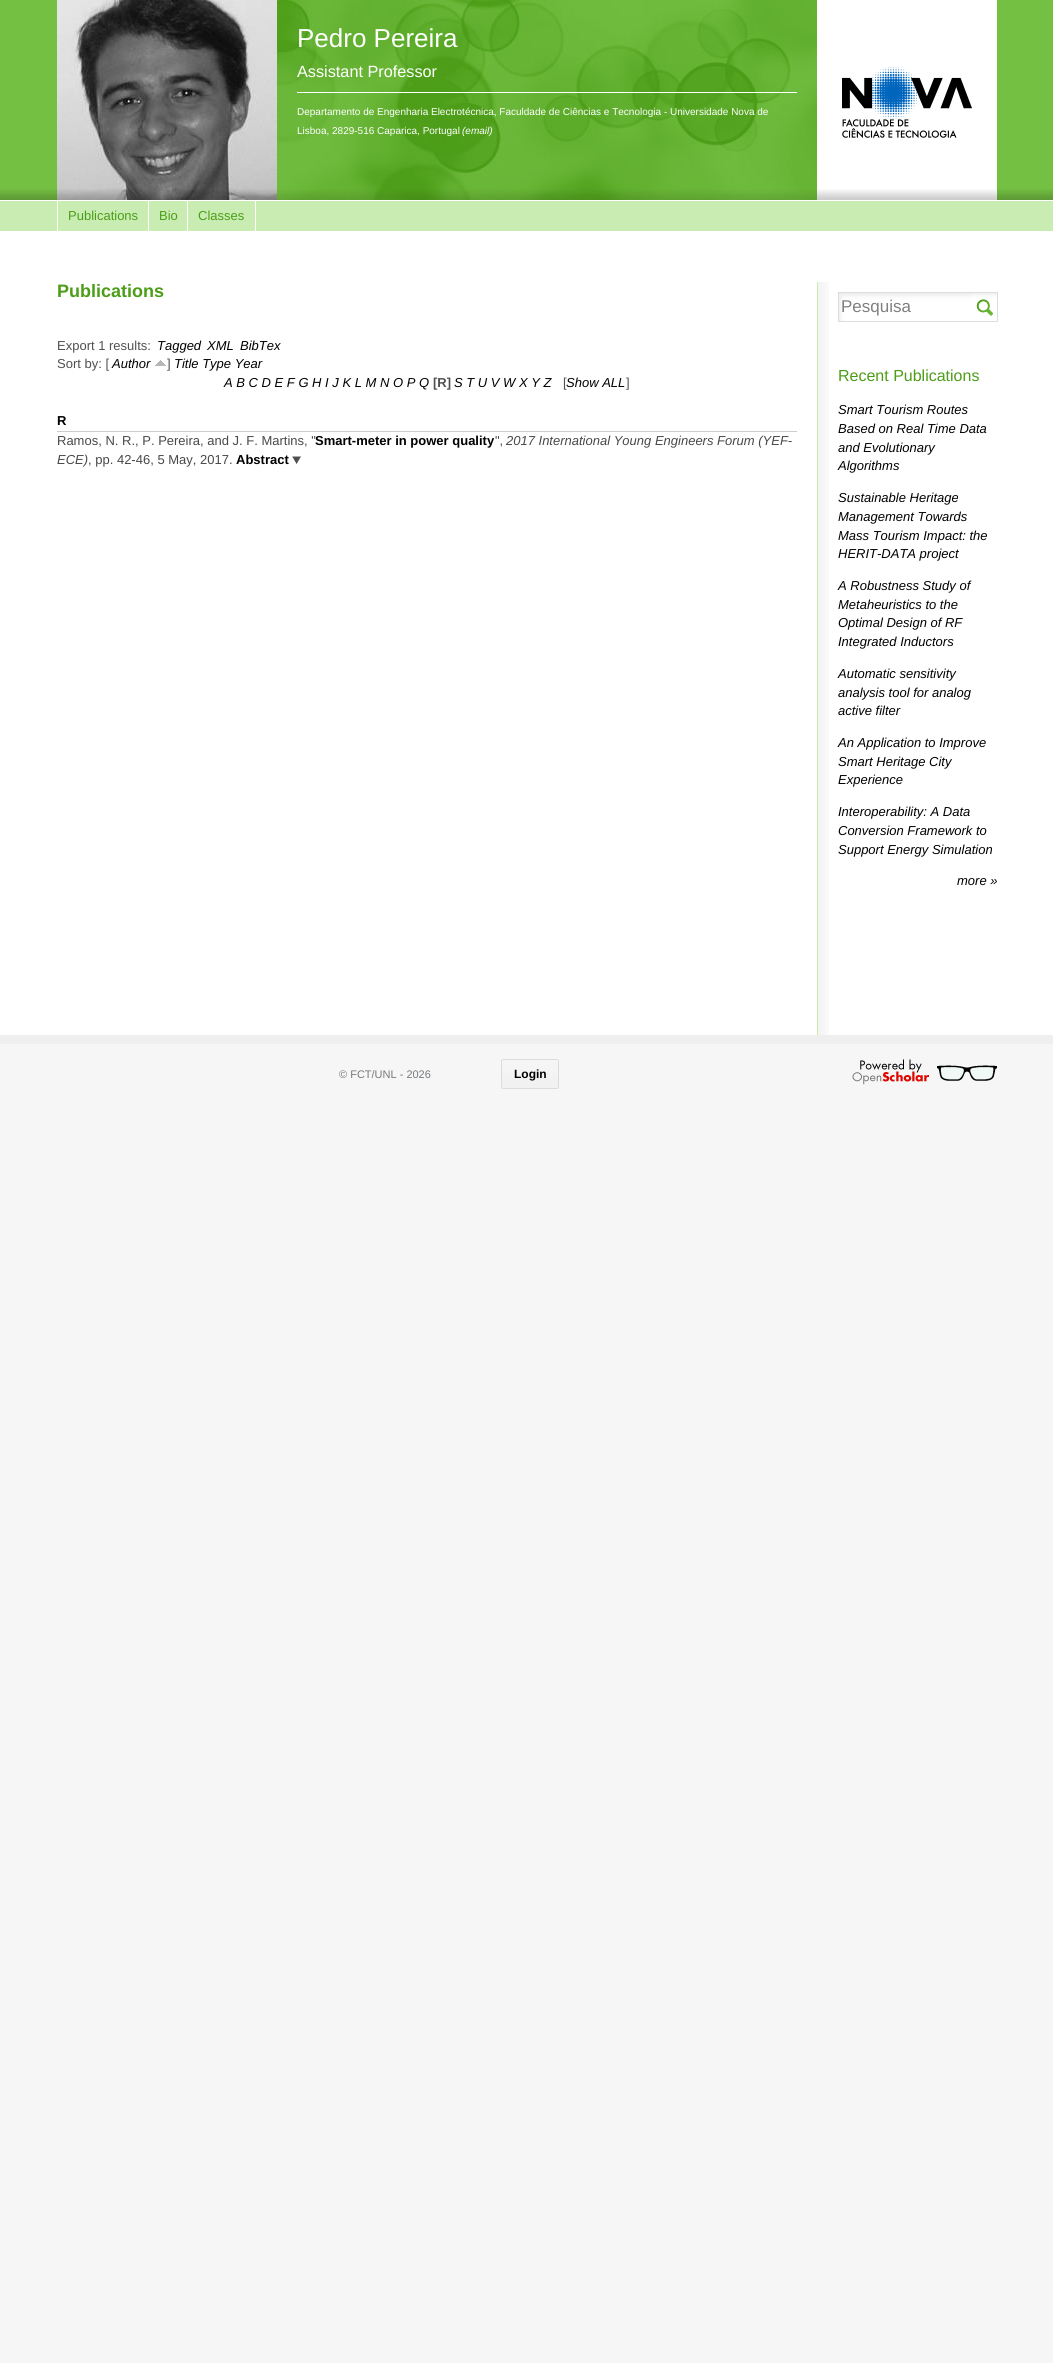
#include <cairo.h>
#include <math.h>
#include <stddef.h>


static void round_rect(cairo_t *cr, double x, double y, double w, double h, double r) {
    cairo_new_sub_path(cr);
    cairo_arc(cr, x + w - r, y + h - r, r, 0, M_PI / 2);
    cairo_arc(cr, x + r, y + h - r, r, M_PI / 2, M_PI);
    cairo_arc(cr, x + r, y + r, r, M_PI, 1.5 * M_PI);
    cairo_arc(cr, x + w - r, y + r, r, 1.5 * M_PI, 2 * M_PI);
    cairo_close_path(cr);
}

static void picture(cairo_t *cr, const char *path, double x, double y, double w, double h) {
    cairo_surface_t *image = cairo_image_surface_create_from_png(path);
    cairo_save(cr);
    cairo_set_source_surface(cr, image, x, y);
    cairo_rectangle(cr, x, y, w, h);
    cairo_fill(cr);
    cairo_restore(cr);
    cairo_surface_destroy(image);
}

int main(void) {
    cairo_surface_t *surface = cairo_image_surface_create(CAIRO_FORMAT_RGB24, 1053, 2363);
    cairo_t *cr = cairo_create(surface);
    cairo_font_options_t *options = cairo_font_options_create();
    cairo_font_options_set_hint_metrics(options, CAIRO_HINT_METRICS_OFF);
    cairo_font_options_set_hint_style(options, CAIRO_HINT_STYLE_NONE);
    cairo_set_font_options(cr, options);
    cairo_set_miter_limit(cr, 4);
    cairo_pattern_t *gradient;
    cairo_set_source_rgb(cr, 0.961, 0.961, 0.961);
    cairo_paint(cr);
    cairo_set_source_rgb(cr, 1, 1, 1);
    cairo_rectangle(cr, 0, 231, 1053, 804);
    cairo_fill(cr);
    cairo_set_source_rgb(cr, 0.455, 0.753, 0.263);
    cairo_rectangle(cr, 0, 0, 1053, 200);
    cairo_fill(cr);
    picture(cr, "img1.png", 0, 189, 1053, 11);
    picture(cr, "img2.png", 277, 0, 540, 200);
    picture(cr, "img3.png", 57, 0, 220, 200);
    picture(cr, "img4.png", 57, 189, 220, 11);
    cairo_select_font_face(cr, "Liberation Sans", CAIRO_FONT_SLANT_NORMAL, CAIRO_FONT_WEIGHT_NORMAL);
    cairo_set_font_size(cr, 26);
    cairo_set_source_rgb(cr, 1, 1, 1);
    cairo_move_to(cr, 297, 47);
    cairo_show_text(cr, "Pedro Pereira");
    cairo_set_font_size(cr, 16.25);
    cairo_move_to(cr, 297, 77);
    cairo_show_text(cr, "Assistant Professor");
    cairo_rectangle(cr, 297, 92, 500, 1);
    cairo_fill(cr);
    cairo_set_font_size(cr, 10);
    cairo_move_to(cr, 297, 115);
    cairo_show_text(cr, "Departamento de Engenharia Electrotécnica, Faculdade de Ciências e Tecnologia - Universidade Nova de");
    cairo_move_to(cr, 297, 134);
    cairo_show_text(cr, "Lisboa, 2829-516 Caparica, Portugal");
    cairo_select_font_face(cr, "Liberation Sans", CAIRO_FONT_SLANT_ITALIC, CAIRO_FONT_WEIGHT_NORMAL);
    cairo_move_to(cr, 462, 134);
    cairo_show_text(cr, "(email)");
    cairo_rectangle(cr, 817, 0, 180, 200);
    cairo_fill(cr);
    picture(cr, "img5.png", 817, 189, 180, 11);
    picture(cr, "img6.png", 842, 67, 130, 71);
    cairo_set_source_rgb(cr, 0.788, 0.922, 0.702);
    cairo_rectangle(cr, 0, 201, 1053, 30);
    cairo_fill(cr);
    cairo_set_source_rgb(cr, 1, 1, 1);
    cairo_rectangle(cr, 0, 200, 1053, 1);
    cairo_fill(cr);
    cairo_rectangle(cr, 148, 201, 1, 30);
    cairo_fill(cr);
    cairo_rectangle(cr, 57, 201, 1, 30);
    cairo_fill(cr);
    cairo_select_font_face(cr, "Liberation Sans", CAIRO_FONT_SLANT_NORMAL, CAIRO_FONT_WEIGHT_NORMAL);
    cairo_set_font_size(cr, 13);
    cairo_set_source_rgb(cr, 0.298, 0.616, 0.09);
    cairo_move_to(cr, 68, 220);
    cairo_show_text(cr, "Publications");
    cairo_set_source_rgb(cr, 1, 1, 1);
    cairo_rectangle(cr, 187, 201, 1, 30);
    cairo_fill(cr);
    cairo_set_source_rgb(cr, 0.298, 0.616, 0.09);
    cairo_move_to(cr, 159, 220);
    cairo_show_text(cr, "Bio");
    cairo_set_source_rgb(cr, 1, 1, 1);
    cairo_rectangle(cr, 255, 201, 1, 30);
    cairo_fill(cr);
    cairo_set_source_rgb(cr, 0.298, 0.616, 0.09);
    cairo_move_to(cr, 198, 220);
    cairo_show_text(cr, "Classes");
    cairo_select_font_face(cr, "Liberation Sans", CAIRO_FONT_SLANT_NORMAL, CAIRO_FONT_WEIGHT_BOLD);
    cairo_set_font_size(cr, 18);
    cairo_move_to(cr, 57, 297);
    cairo_show_text(cr, "Publications");
    cairo_select_font_face(cr, "Liberation Sans", CAIRO_FONT_SLANT_NORMAL, CAIRO_FONT_WEIGHT_NORMAL);
    cairo_set_font_size(cr, 13);
    cairo_set_source_rgb(cr, 0.314, 0.314, 0.314);
    cairo_move_to(cr, 57, 350);
    cairo_show_text(cr, "Export 1 results:");
    cairo_select_font_face(cr, "Liberation Sans", CAIRO_FONT_SLANT_ITALIC, CAIRO_FONT_WEIGHT_NORMAL);
    cairo_set_source_rgb(cr, 0, 0, 0);
    cairo_move_to(cr, 157, 350);
    cairo_show_text(cr, "Tagged");
    cairo_move_to(cr, 207, 350);
    cairo_show_text(cr, "XML");
    cairo_move_to(cr, 240, 350);
    cairo_show_text(cr, "BibTex");
    cairo_select_font_face(cr, "Liberation Sans", CAIRO_FONT_SLANT_NORMAL, CAIRO_FONT_WEIGHT_NORMAL);
    cairo_set_source_rgb(cr, 0.314, 0.314, 0.314);
    cairo_move_to(cr, 57, 368);
    cairo_show_text(cr, "Sort by: [");
    cairo_select_font_face(cr, "Liberation Sans", CAIRO_FONT_SLANT_ITALIC, CAIRO_FONT_WEIGHT_NORMAL);
    cairo_set_source_rgb(cr, 0, 0, 0);
    cairo_move_to(cr, 112, 368);
    cairo_show_text(cr, "Author");
    picture(cr, "img7.png", 155, 360, 11, 6);
    cairo_select_font_face(cr, "Liberation Sans", CAIRO_FONT_SLANT_NORMAL, CAIRO_FONT_WEIGHT_NORMAL);
    cairo_set_source_rgb(cr, 0.314, 0.314, 0.314);
    cairo_move_to(cr, 167, 368);
    cairo_show_text(cr, "]");
    cairo_select_font_face(cr, "Liberation Sans", CAIRO_FONT_SLANT_ITALIC, CAIRO_FONT_WEIGHT_NORMAL);
    cairo_set_source_rgb(cr, 0, 0, 0);
    cairo_move_to(cr, 174, 368);
    cairo_show_text(cr, "Title Type Year");
    cairo_move_to(cr, 224, 387);
    cairo_show_text(cr, "A B C D E F G H I J K L M N O P Q");
    cairo_select_font_face(cr, "Liberation Sans", CAIRO_FONT_SLANT_NORMAL, CAIRO_FONT_WEIGHT_BOLD);
    cairo_set_source_rgb(cr, 0.314, 0.314, 0.314);
    cairo_move_to(cr, 433, 387);
    cairo_show_text(cr, "[R]");
    cairo_select_font_face(cr, "Liberation Sans", CAIRO_FONT_SLANT_ITALIC, CAIRO_FONT_WEIGHT_NORMAL);
    cairo_set_source_rgb(cr, 0, 0, 0);
    cairo_move_to(cr, 454, 387);
    cairo_show_text(cr, "S T U V W X Y Z");
    cairo_select_font_face(cr, "Liberation Sans", CAIRO_FONT_SLANT_NORMAL, CAIRO_FONT_WEIGHT_NORMAL);
    cairo_set_source_rgb(cr, 0.314, 0.314, 0.314);
    cairo_move_to(cr, 563, 387);
    cairo_show_text(cr, "[");
    cairo_select_font_face(cr, "Liberation Sans", CAIRO_FONT_SLANT_ITALIC, CAIRO_FONT_WEIGHT_NORMAL);
    cairo_set_source_rgb(cr, 0, 0, 0);
    cairo_move_to(cr, 566, 387);
    cairo_show_text(cr, "Show ALL");
    cairo_select_font_face(cr, "Liberation Sans", CAIRO_FONT_SLANT_NORMAL, CAIRO_FONT_WEIGHT_NORMAL);
    cairo_set_source_rgb(cr, 0.314, 0.314, 0.314);
    cairo_move_to(cr, 626, 387);
    cairo_show_text(cr, "]");
    cairo_set_source_rgb(cr, 0.8, 0.8, 0.8);
    cairo_rectangle(cr, 57, 431, 740, 1);
    cairo_fill(cr);
    cairo_select_font_face(cr, "Liberation Sans", CAIRO_FONT_SLANT_NORMAL, CAIRO_FONT_WEIGHT_BOLD);
    cairo_set_source_rgb(cr, 0, 0, 0);
    cairo_move_to(cr, 57, 425);
    cairo_show_text(cr, "R");
    cairo_select_font_face(cr, "Liberation Sans", CAIRO_FONT_SLANT_NORMAL, CAIRO_FONT_WEIGHT_NORMAL);
    cairo_set_source_rgb(cr, 0.282, 0.282, 0.282);
    cairo_move_to(cr, 57, 445);
    cairo_show_text(cr, "Ramos, N. R., P. Pereira, and J. F. Martins, \"");
    cairo_select_font_face(cr, "Liberation Sans", CAIRO_FONT_SLANT_NORMAL, CAIRO_FONT_WEIGHT_BOLD);
    cairo_set_source_rgb(cr, 0, 0, 0);
    cairo_move_to(cr, 315, 445);
    cairo_show_text(cr, "Smart-meter in power quality");
    cairo_select_font_face(cr, "Liberation Sans", CAIRO_FONT_SLANT_NORMAL, CAIRO_FONT_WEIGHT_NORMAL);
    cairo_set_source_rgb(cr, 0.282, 0.282, 0.282);
    cairo_move_to(cr, 495, 445);
    cairo_show_text(cr, "\",");
    cairo_select_font_face(cr, "Liberation Sans", CAIRO_FONT_SLANT_ITALIC, CAIRO_FONT_WEIGHT_NORMAL);
    cairo_move_to(cr, 506, 445);
    cairo_show_text(cr, "2017 International Young Engineers Forum (YEF-");
    cairo_move_to(cr, 57, 464);
    cairo_show_text(cr, "ECE)");
    cairo_select_font_face(cr, "Liberation Sans", CAIRO_FONT_SLANT_NORMAL, CAIRO_FONT_WEIGHT_NORMAL);
    cairo_move_to(cr, 88, 464);
    cairo_show_text(cr, ", pp. 42-46, 5 May, 2017.");
    cairo_select_font_face(cr, "Liberation Sans", CAIRO_FONT_SLANT_NORMAL, CAIRO_FONT_WEIGHT_BOLD);
    cairo_set_source_rgb(cr, 0, 0, 0);
    cairo_move_to(cr, 236, 464);
    cairo_show_text(cr, "Abstract");
    picture(cr, "img8.png", 292, 456, 9, 8);
    picture(cr, "img9.png", 818, 282, 11, 753);
    cairo_set_source_rgb(cr, 0.788, 0.922, 0.702);
    cairo_rectangle(cr, 817, 282, 1, 753);
    cairo_fill(cr);
    picture(cr, "img10.png", 971, 293, 26, 28);
    cairo_rectangle(cr, 838.5, 292.5, 159, 29);
    cairo_set_source_rgb(cr, 0.867, 0.867, 0.867);
    cairo_set_line_width(cr, 1);
    cairo_stroke(cr);
    picture(cr, "img11.png", 839, 293, 132, 28);
    cairo_select_font_face(cr, "Liberation Sans", CAIRO_FONT_SLANT_NORMAL, CAIRO_FONT_WEIGHT_NORMAL);
    cairo_set_font_size(cr, 17);
    cairo_set_source_rgb(cr, 0.502, 0.502, 0.502);
    cairo_move_to(cr, 841, 312);
    cairo_show_text(cr, "Pesquisa");
    picture(cr, "img12.png", 976, 299, 17, 17);
    cairo_set_font_size(cr, 16);
    cairo_set_source_rgb(cr, 0.298, 0.616, 0.09);
    cairo_move_to(cr, 838, 381);
    cairo_show_text(cr, "Recent Publications");
    cairo_select_font_face(cr, "Liberation Sans", CAIRO_FONT_SLANT_ITALIC, CAIRO_FONT_WEIGHT_NORMAL);
    cairo_set_font_size(cr, 13);
    cairo_set_source_rgb(cr, 0, 0, 0);
    cairo_move_to(cr, 838, 414);
    cairo_show_text(cr, "Smart Tourism Routes");
    cairo_move_to(cr, 838, 433);
    cairo_show_text(cr, "Based on Real Time Data");
    cairo_move_to(cr, 838, 452);
    cairo_show_text(cr, "and Evolutionary");
    cairo_move_to(cr, 838, 470);
    cairo_show_text(cr, "Algorithms");
    cairo_move_to(cr, 838, 502);
    cairo_show_text(cr, "Sustainable Heritage");
    cairo_move_to(cr, 838, 521);
    cairo_show_text(cr, "Management Towards");
    cairo_move_to(cr, 838, 540);
    cairo_show_text(cr, "Mass Tourism Impact: the");
    cairo_move_to(cr, 838, 558);
    cairo_show_text(cr, "HERIT-DATA project");
    cairo_move_to(cr, 838, 590);
    cairo_show_text(cr, "A Robustness Study of");
    cairo_move_to(cr, 838, 609);
    cairo_show_text(cr, "Metaheuristics to the");
    cairo_move_to(cr, 838, 627);
    cairo_show_text(cr, "Optimal Design of RF");
    cairo_move_to(cr, 838, 646);
    cairo_show_text(cr, "Integrated Inductors");
    cairo_move_to(cr, 838, 678);
    cairo_show_text(cr, "Automatic sensitivity");
    cairo_move_to(cr, 838, 697);
    cairo_show_text(cr, "analysis tool for analog");
    cairo_move_to(cr, 838, 715);
    cairo_show_text(cr, "active filter");
    cairo_move_to(cr, 838, 747);
    cairo_show_text(cr, "An Application to Improve");
    cairo_move_to(cr, 838, 766);
    cairo_show_text(cr, "Smart Heritage City");
    cairo_move_to(cr, 838, 784);
    cairo_show_text(cr, "Experience");
    cairo_move_to(cr, 838, 816);
    cairo_show_text(cr, "Interoperability: A Data");
    cairo_move_to(cr, 838, 835);
    cairo_show_text(cr, "Conversion Framework to");
    cairo_move_to(cr, 838, 854);
    cairo_show_text(cr, "Support Energy Simulation");
    cairo_move_to(cr, 957, 885);
    cairo_show_text(cr, "more »");
    cairo_set_source_rgb(cr, 0.937, 0.937, 0.937);
    cairo_rectangle(cr, 0, 1035, 1053, 9);
    cairo_fill(cr);
    cairo_select_font_face(cr, "Liberation Sans", CAIRO_FONT_SLANT_NORMAL, CAIRO_FONT_WEIGHT_NORMAL);
    cairo_set_font_size(cr, 11);
    cairo_set_source_rgb(cr, 0.463, 0.475, 0.486);
    cairo_move_to(cr, 339, 1078);
    cairo_show_text(cr, "© FCT/UNL - 2026");
    cairo_save(cr);
    round_rect(cr, 501, 1059, 58, 30, 2);
    cairo_clip(cr);
    gradient = cairo_pattern_create_linear(502, 1071, 502, 1080);
    cairo_pattern_add_color_stop_rgba(gradient, 0, 0.961, 0.961, 0.961, 1);
    cairo_pattern_add_color_stop_rgba(gradient, 1, 0.945, 0.945, 0.945, 1);
    cairo_set_source(cr, gradient);
    cairo_pattern_destroy(gradient);
    cairo_rectangle(cr, 501, 1060, 58, 28);
    cairo_fill(cr);
    cairo_restore(cr);
    round_rect(cr, 501.5, 1059.5, 57, 29, 1.5);
    cairo_set_source_rgb(cr, 0.863, 0.863, 0.863);
    cairo_stroke(cr);
    cairo_select_font_face(cr, "Liberation Sans", CAIRO_FONT_SLANT_NORMAL, CAIRO_FONT_WEIGHT_BOLD);
    cairo_set_font_size(cr, 12);
    cairo_set_source_rgb(cr, 0, 0, 0);
    cairo_move_to(cr, 514, 1078);
    cairo_show_text(cr, "Login");
    picture(cr, "img13.png", 852, 1059, 145, 26);
    cairo_surface_write_to_png(surface, "page.png");
    cairo_font_options_destroy(options);
    cairo_destroy(cr);
    cairo_surface_destroy(surface);
    return 0;
}
